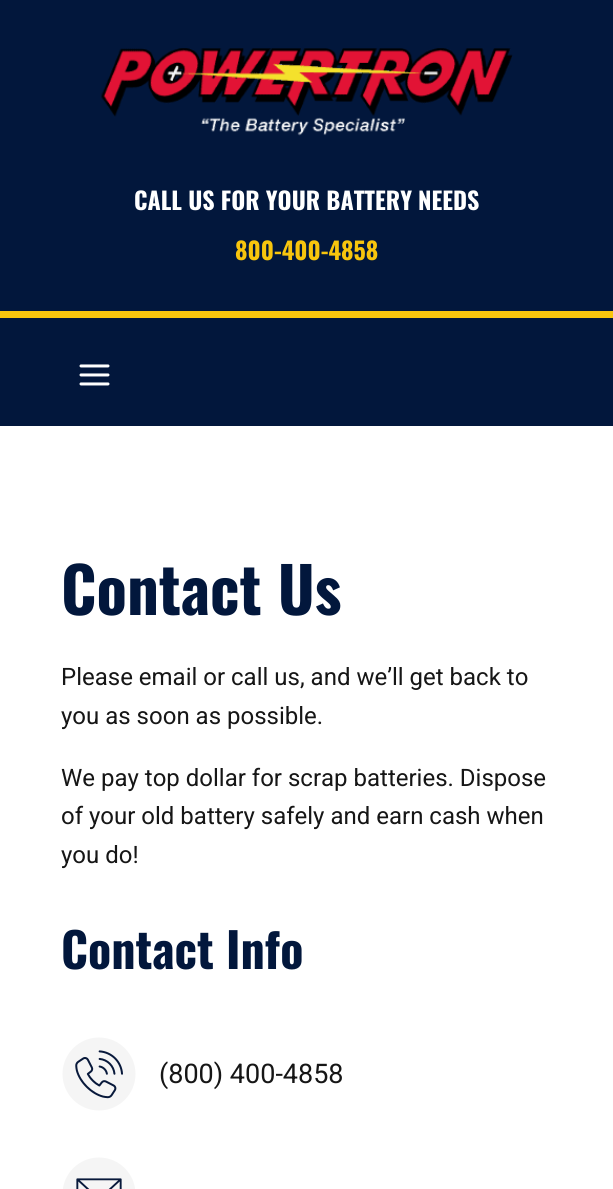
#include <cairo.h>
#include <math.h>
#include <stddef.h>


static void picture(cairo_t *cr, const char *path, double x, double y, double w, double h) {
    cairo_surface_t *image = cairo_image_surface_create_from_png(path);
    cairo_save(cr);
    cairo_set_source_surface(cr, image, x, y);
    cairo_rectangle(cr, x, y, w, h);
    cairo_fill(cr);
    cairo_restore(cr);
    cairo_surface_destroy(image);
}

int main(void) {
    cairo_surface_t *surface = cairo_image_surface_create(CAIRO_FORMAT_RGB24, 613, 1189);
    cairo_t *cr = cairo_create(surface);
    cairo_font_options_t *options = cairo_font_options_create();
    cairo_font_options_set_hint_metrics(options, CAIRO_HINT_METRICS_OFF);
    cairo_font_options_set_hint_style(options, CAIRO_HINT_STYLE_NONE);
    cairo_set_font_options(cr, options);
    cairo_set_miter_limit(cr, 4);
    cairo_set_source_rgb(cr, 1, 1, 1);
    cairo_paint(cr);
    cairo_set_source_rgb(cr, 0.008, 0.09, 0.235);
    cairo_rectangle(cr, 0, 0, 613, 311);
    cairo_fill(cr);
    cairo_set_source_rgb(cr, 0.969, 0.773, 0.051);
    cairo_rectangle(cr, 0, 311, 613, 7);
    cairo_fill(cr);
    picture(cr, "img1.png", 101, 48, 412, 88);
    cairo_select_font_face(cr, "Oswald", CAIRO_FONT_SLANT_NORMAL, CAIRO_FONT_WEIGHT_BOLD);
    cairo_set_font_size(cr, 24);
    cairo_set_source_rgb(cr, 1, 1, 1);
    cairo_move_to(cr, 134, 210);
    cairo_show_text(cr, "CALL US FOR YOUR BATTERY NEEDS");
    cairo_set_source_rgb(cr, 0.969, 0.773, 0.051);
    cairo_move_to(cr, 235, 260);
    cairo_show_text(cr, "800-400-4858");
    cairo_set_source_rgb(cr, 0.008, 0.09, 0.235);
    cairo_rectangle(cr, 0, 318, 613, 108);
    cairo_fill(cr);
    picture(cr, "img2.png", 79, 364, 31, 22);
    cairo_set_font_size(cr, 63);
    cairo_move_to(cr, 61, 615);
    cairo_show_text(cr, "Contact Us");
    cairo_select_font_face(cr, "Roboto", CAIRO_FONT_SLANT_NORMAL, CAIRO_FONT_WEIGHT_NORMAL);
    cairo_set_font_size(cr, 24);
    cairo_set_source_rgb(cr, 0.086, 0.086, 0.086);
    cairo_move_to(cr, 61, 685);
    cairo_show_text(cr, "Please email or call us, and we’ll get back to");
    cairo_move_to(cr, 61, 724);
    cairo_show_text(cr, "you as soon as possible.");
    cairo_move_to(cr, 61, 786);
    cairo_show_text(cr, "We pay top dollar for scrap batteries. Dispose");
    cairo_move_to(cr, 61, 824);
    cairo_show_text(cr, "of your old battery safely and earn cash when");
    cairo_move_to(cr, 61, 863);
    cairo_show_text(cr, "you do!");
    cairo_select_font_face(cr, "Oswald", CAIRO_FONT_SLANT_NORMAL, CAIRO_FONT_WEIGHT_BOLD);
    cairo_set_font_size(cr, 48);
    cairo_set_source_rgb(cr, 0.008, 0.09, 0.235);
    cairo_move_to(cr, 61, 969);
    cairo_show_text(cr, "Contact Info");
    picture(cr, "img3.png", 62, 1037, 74, 74);
    cairo_select_font_face(cr, "Roboto", CAIRO_FONT_SLANT_NORMAL, CAIRO_FONT_WEIGHT_NORMAL);
    cairo_set_font_size(cr, 27);
    cairo_set_source_rgb(cr, 0.086, 0.086, 0.086);
    cairo_move_to(cr, 159, 1083);
    cairo_show_text(cr, "(800) 400-4858");
    picture(cr, "img4.png", 63, 1157, 72, 32);
    cairo_surface_write_to_png(surface, "page.png");
    cairo_font_options_destroy(options);
    cairo_destroy(cr);
    cairo_surface_destroy(surface);
    return 0;
}
